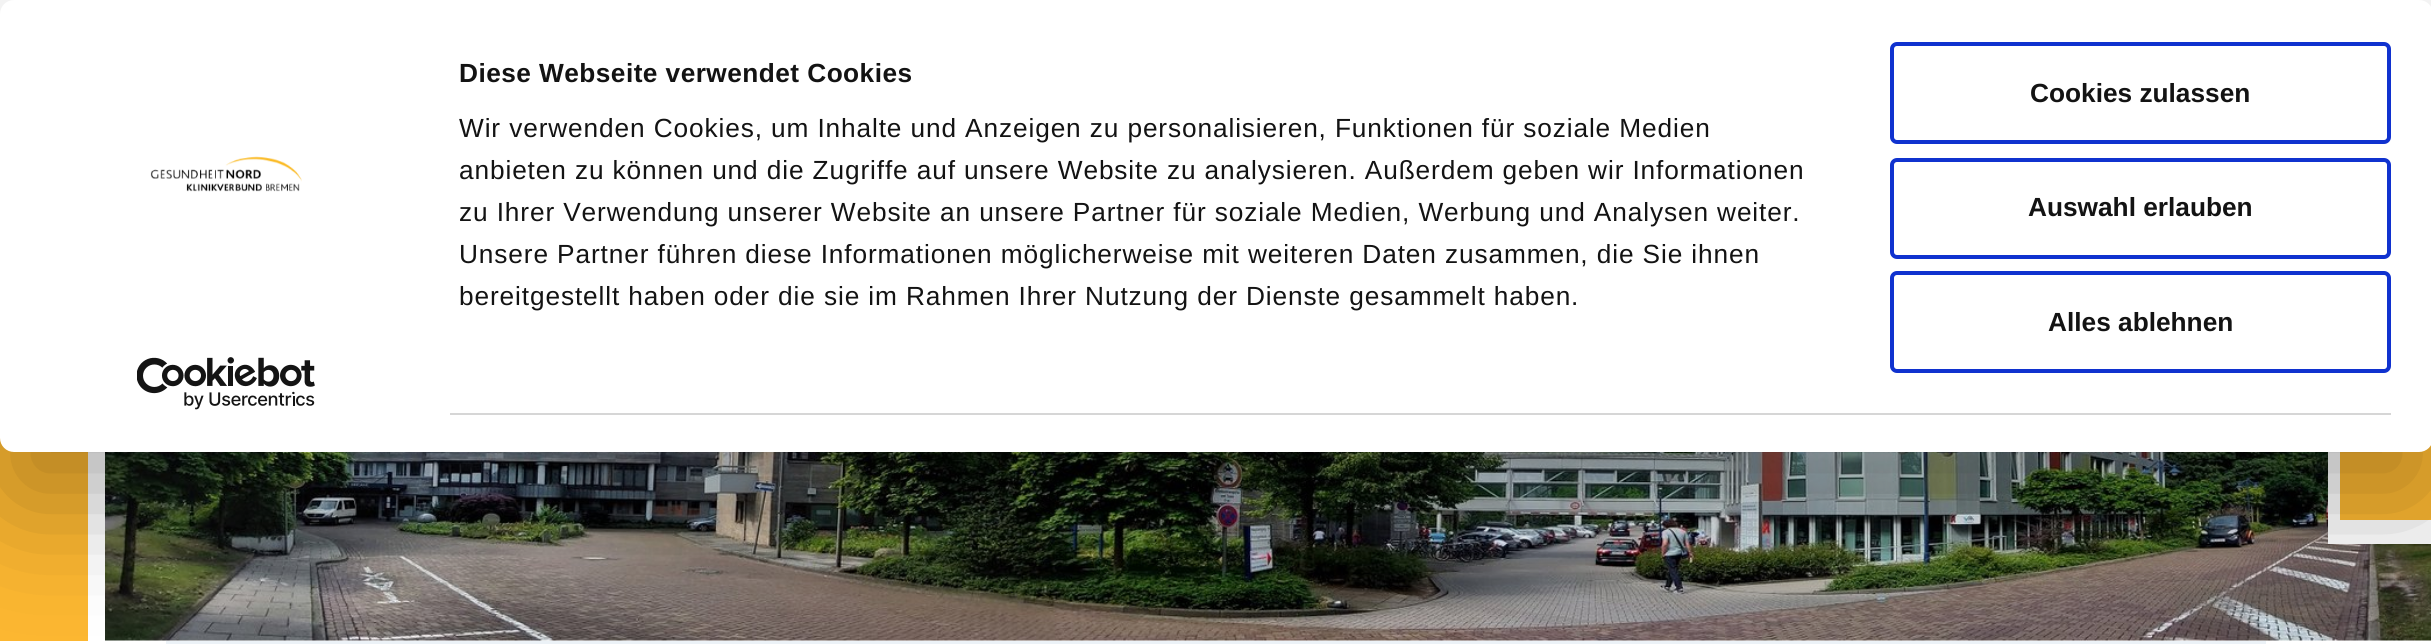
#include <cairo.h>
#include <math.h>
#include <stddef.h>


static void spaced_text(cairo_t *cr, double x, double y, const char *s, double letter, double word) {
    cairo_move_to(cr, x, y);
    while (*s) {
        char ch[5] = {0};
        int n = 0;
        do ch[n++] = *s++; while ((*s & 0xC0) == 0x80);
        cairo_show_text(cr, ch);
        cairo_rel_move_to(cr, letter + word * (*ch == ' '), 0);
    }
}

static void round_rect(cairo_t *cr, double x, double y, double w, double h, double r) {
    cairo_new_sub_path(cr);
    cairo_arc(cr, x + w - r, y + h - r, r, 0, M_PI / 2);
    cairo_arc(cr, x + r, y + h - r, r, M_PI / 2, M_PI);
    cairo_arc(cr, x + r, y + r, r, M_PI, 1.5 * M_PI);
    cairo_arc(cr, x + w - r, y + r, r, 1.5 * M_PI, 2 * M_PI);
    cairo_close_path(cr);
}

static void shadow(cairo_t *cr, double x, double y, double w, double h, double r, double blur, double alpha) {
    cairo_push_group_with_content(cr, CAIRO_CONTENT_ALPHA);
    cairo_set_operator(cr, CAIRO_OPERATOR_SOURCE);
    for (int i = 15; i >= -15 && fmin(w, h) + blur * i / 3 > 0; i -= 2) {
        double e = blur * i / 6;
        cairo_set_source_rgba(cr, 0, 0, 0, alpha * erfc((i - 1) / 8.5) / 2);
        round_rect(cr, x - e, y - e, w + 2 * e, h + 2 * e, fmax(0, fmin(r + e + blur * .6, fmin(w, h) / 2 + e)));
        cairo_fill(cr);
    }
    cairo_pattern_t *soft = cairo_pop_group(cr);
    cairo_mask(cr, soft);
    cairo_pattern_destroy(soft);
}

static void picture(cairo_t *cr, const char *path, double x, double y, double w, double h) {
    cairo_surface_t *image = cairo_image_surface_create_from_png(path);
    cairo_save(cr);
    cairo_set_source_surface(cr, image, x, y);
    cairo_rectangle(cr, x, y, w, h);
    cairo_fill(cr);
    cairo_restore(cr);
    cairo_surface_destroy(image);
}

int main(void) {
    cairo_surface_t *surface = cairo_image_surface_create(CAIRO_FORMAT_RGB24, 2431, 644);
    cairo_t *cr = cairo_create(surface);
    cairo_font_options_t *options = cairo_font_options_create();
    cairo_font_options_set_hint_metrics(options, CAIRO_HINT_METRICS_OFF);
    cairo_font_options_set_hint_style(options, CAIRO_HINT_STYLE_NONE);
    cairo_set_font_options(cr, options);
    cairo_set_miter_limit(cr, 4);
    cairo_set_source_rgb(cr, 1, 1, 1);
    cairo_paint(cr);
    cairo_set_source_rgb(cr, 0.988, 0.718, 0.192);
    cairo_rectangle(cr, 0, 438, 88, 203);
    cairo_fill(cr);
    picture(cr, "img3.png", 105, 452, 2326, 189);
    cairo_set_source_rgb(cr, 0.925, 0.949, 0.965);
    cairo_rectangle(cr, 166, 641, 2100, 3);
    cairo_fill(cr);
    cairo_set_source_rgb(cr, 1, 1, 1);
    cairo_rectangle(cr, 2340, 520, 91, 24);
    cairo_fill(cr);
    cairo_rectangle(cr, 2328, 452, 12, 92);
    cairo_fill(cr);
    cairo_set_source_rgb(cr, 0.988, 0.718, 0.192);
    cairo_rectangle(cr, 2340, 445, 91, 75);
    cairo_fill(cr);
    cairo_set_source_rgb(cr, 0, 0, 0);
    shadow(cr, 0, 53, 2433, 451, 14, 61, 0.3);
    cairo_set_source_rgb(cr, 1, 1, 1);
    round_rect(cr, 0, 0, 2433, 452, 14);
    cairo_fill(cr);
    picture(cr, "img1.png", 150, 156, 152, 36);
    picture(cr, "img2.png", 137, 357, 178, 53);
    cairo_select_font_face(cr, "Liberation Sans", CAIRO_FONT_SLANT_NORMAL, CAIRO_FONT_WEIGHT_BOLD);
    cairo_set_font_size(cr, 26.25);
    cairo_set_source_rgb(cr, 0.078, 0.078, 0.078);
    spaced_text(cr, 459, 82, "Diese Webseite verwendet Cookies", 0.45, 0);
    cairo_select_font_face(cr, "Liberation Sans", CAIRO_FONT_SLANT_NORMAL, CAIRO_FONT_WEIGHT_NORMAL);
    spaced_text(cr, 459, 137, "Wir verwenden Cookies, um Inhalte und Anzeigen zu personalisieren, Funktionen für soziale Medien", 0.88, 0);
    spaced_text(cr, 459, 179, "anbieten zu können und die Zugriffe auf unsere Website zu analysieren. Außerdem geben wir Informationen", 0.88, 0);
    spaced_text(cr, 459, 221, "zu Ihrer Verwendung unserer Website an unsere Partner für soziale Medien, Werbung und Analysen weiter.", 0.88, 0);
    spaced_text(cr, 459, 263, "Unsere Partner führen diese Informationen möglicherweise mit weiteren Daten zusammen, die Sie ihnen", 0.88, 0);
    spaced_text(cr, 459, 305, "bereitgestellt haben oder die sie im Rahmen Ihrer Nutzung der Dienste gesammelt haben.", 0.88, 0);
    cairo_set_source_rgb(cr, 0.839, 0.839, 0.839);
    cairo_rectangle(cr, 450, 413, 1941, 2);
    cairo_fill(cr);
    round_rect(cr, 1892, 44, 497, 98, 5);
    cairo_set_source_rgb(cr, 0.063, 0.196, 0.812);
    cairo_set_line_width(cr, 4);
    cairo_stroke(cr);
    cairo_select_font_face(cr, "Liberation Sans", CAIRO_FONT_SLANT_NORMAL, CAIRO_FONT_WEIGHT_BOLD);
    cairo_set_source_rgb(cr, 0.078, 0.078, 0.078);
    cairo_move_to(cr, 2030, 102);
    cairo_show_text(cr, "Cookies zulassen");
    round_rect(cr, 1892, 160, 497, 97, 5);
    cairo_set_source_rgb(cr, 0.063, 0.196, 0.812);
    cairo_stroke(cr);
    cairo_set_source_rgb(cr, 0.078, 0.078, 0.078);
    cairo_move_to(cr, 2028, 216);
    cairo_show_text(cr, "Auswahl erlauben");
    round_rect(cr, 1892, 273, 497, 98, 5);
    cairo_set_source_rgb(cr, 0.063, 0.196, 0.812);
    cairo_stroke(cr);
    cairo_set_source_rgb(cr, 0.078, 0.078, 0.078);
    cairo_move_to(cr, 2048, 331);
    cairo_show_text(cr, "Alles ablehnen");
    cairo_surface_write_to_png(surface, "page.png");
    cairo_font_options_destroy(options);
    cairo_destroy(cr);
    cairo_surface_destroy(surface);
    return 0;
}
